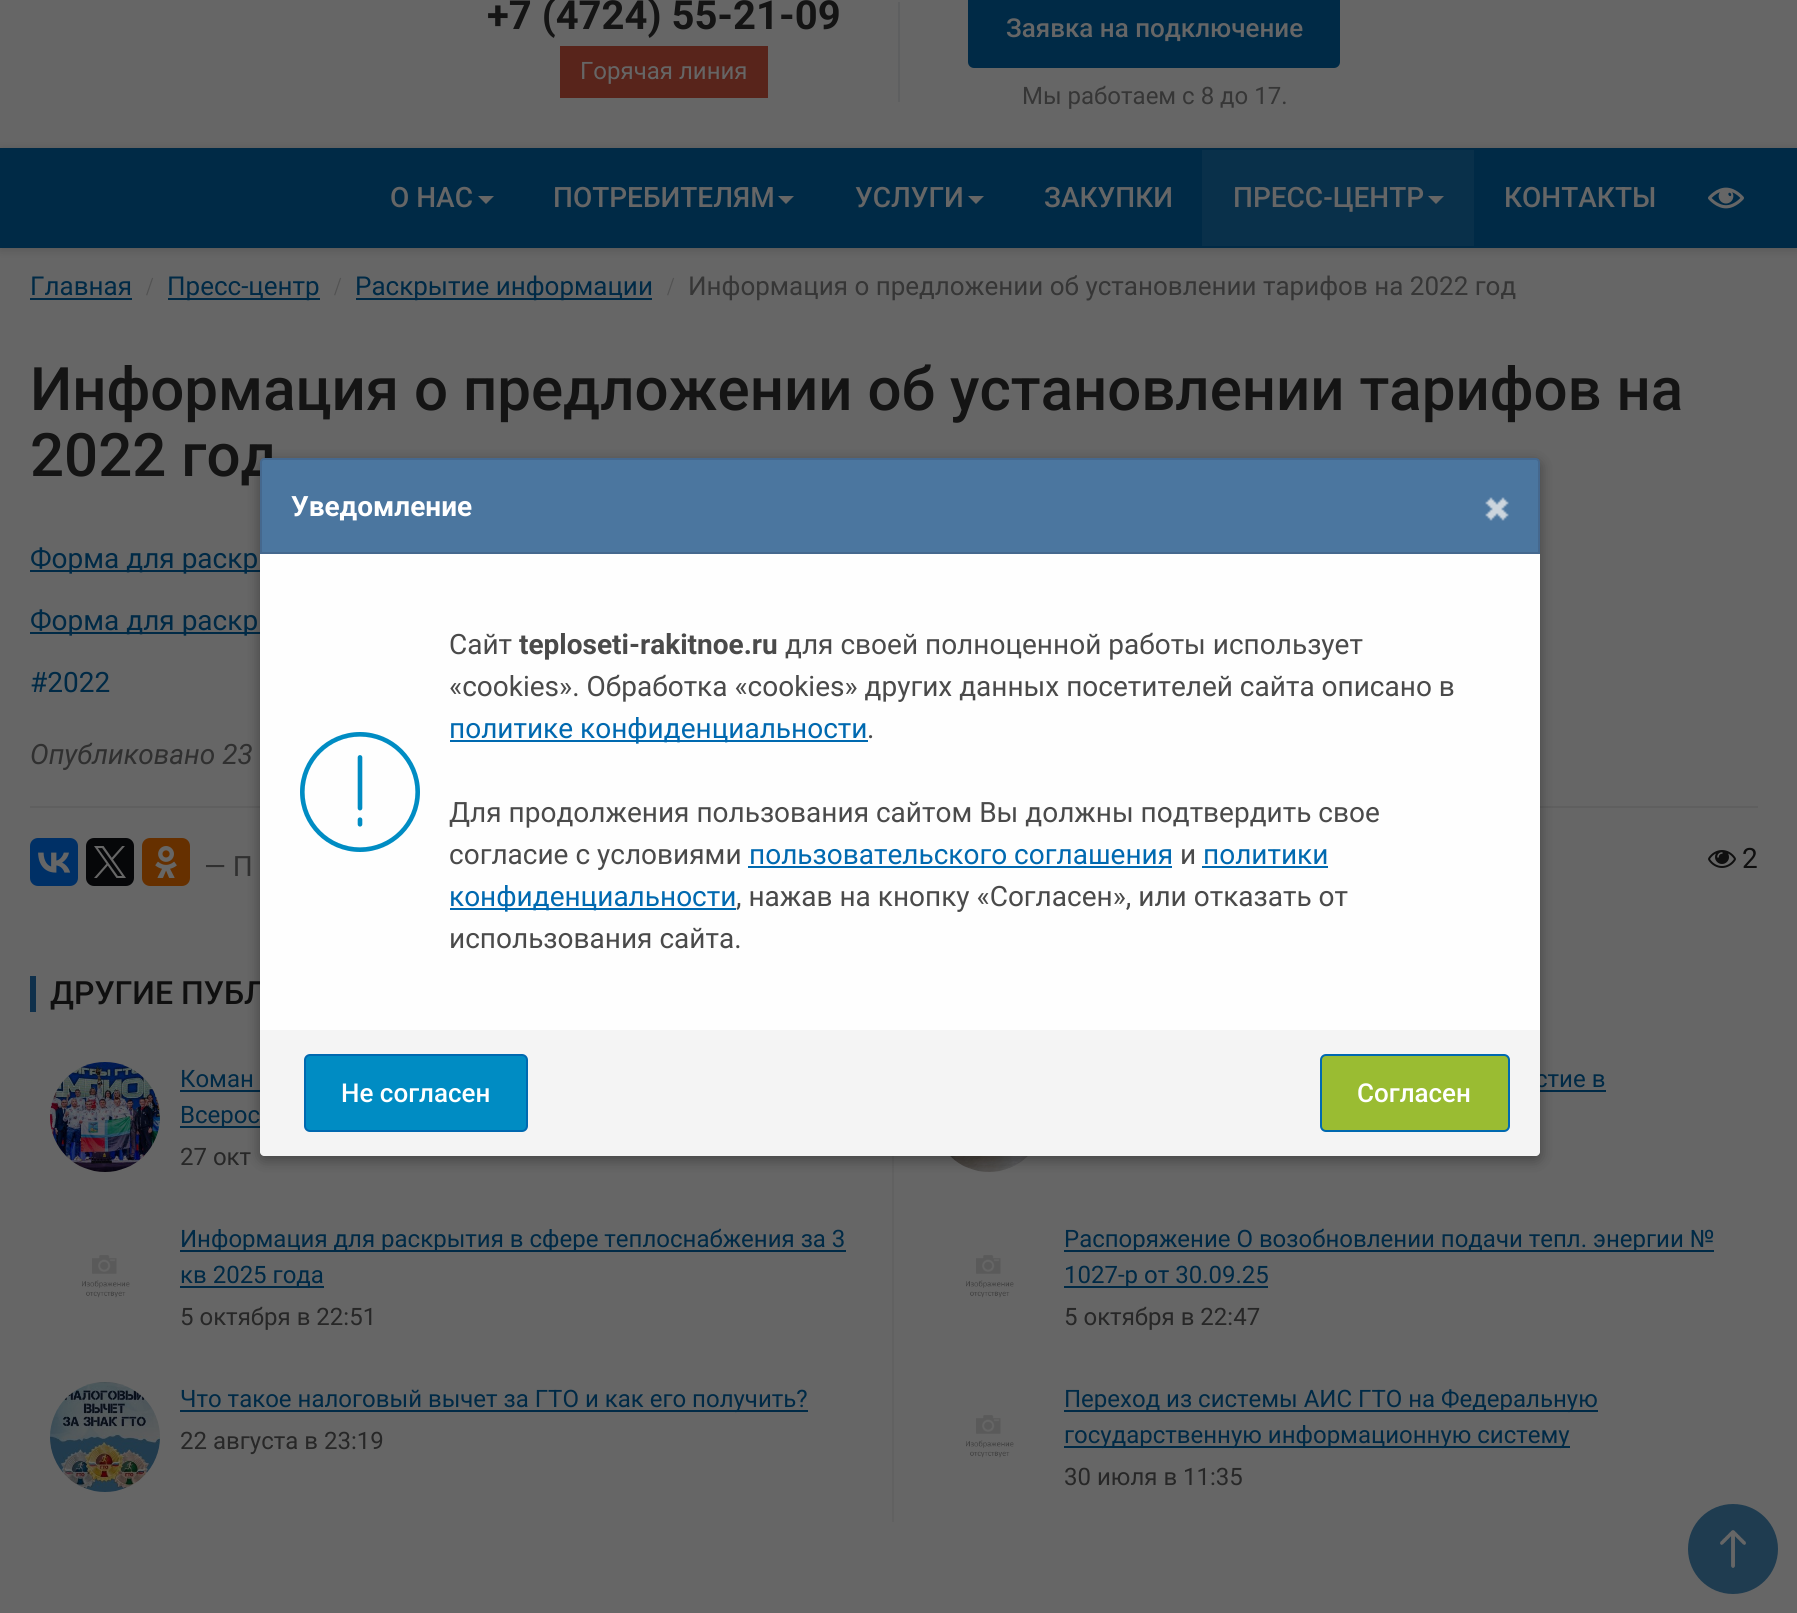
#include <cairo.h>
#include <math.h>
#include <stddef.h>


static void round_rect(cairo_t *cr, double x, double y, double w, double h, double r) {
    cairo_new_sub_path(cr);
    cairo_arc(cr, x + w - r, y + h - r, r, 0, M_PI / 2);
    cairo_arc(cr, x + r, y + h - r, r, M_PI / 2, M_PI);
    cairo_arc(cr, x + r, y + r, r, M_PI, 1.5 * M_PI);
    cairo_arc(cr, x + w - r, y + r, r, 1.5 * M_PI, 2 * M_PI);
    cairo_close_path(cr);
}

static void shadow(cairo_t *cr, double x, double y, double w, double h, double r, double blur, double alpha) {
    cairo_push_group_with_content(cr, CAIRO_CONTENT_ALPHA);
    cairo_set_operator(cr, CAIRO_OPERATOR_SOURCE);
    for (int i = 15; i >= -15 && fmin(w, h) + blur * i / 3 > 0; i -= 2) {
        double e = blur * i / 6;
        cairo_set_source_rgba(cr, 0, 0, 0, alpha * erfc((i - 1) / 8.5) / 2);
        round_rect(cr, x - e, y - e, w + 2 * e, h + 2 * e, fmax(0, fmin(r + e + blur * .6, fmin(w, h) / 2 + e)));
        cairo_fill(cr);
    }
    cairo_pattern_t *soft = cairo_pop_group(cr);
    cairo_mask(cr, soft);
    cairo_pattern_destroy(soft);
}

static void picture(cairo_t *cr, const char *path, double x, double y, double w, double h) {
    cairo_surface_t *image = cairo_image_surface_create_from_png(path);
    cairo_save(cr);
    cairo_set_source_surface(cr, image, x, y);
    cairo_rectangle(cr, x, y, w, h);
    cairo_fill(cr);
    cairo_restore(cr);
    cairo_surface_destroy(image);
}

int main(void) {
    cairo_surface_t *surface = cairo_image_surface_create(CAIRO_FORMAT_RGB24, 1797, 1613);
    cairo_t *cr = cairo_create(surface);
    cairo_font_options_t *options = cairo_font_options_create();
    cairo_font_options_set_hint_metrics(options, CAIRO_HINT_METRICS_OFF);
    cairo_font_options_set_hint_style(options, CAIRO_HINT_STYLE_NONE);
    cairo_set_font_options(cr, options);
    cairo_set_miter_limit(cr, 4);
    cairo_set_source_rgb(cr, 0.4, 0.4, 0.4);
    cairo_paint(cr);
    cairo_select_font_face(cr, "Roboto", CAIRO_FONT_SLANT_NORMAL, CAIRO_FONT_WEIGHT_BOLD);
    cairo_set_font_size(cr, 40);
    cairo_set_source_rgb(cr, 0.082, 0.082, 0.082);
    cairo_move_to(cr, 487, 29);
    cairo_show_text(cr, "+7 (4724) 55-21-09");
    cairo_set_source_rgb(cr, 0.345, 0.141, 0.106);
    cairo_rectangle(cr, 560, 46, 208, 52);
    cairo_fill(cr);
    cairo_select_font_face(cr, "Roboto", CAIRO_FONT_SLANT_NORMAL, CAIRO_FONT_WEIGHT_NORMAL);
    cairo_set_font_size(cr, 24);
    cairo_set_source_rgb(cr, 0.4, 0.4, 0.4);
    cairo_move_to(cr, 580, 79);
    cairo_show_text(cr, "Горячая линия");
    cairo_set_source_rgb(cr, 0.369, 0.373, 0.376);
    cairo_rectangle(cr, 898, 2, 2, 100);
    cairo_fill(cr);
    cairo_set_source_rgb(cr, 0, 0.165, 0.275);
    round_rect(cr, 969, -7, 370, 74, 5);
    cairo_fill_preserve(cr);
    cairo_stroke(cr);
    cairo_select_font_face(cr, "Roboto Medium", CAIRO_FONT_SLANT_NORMAL, CAIRO_FONT_WEIGHT_NORMAL);
    cairo_set_font_size(cr, 26);
    cairo_set_source_rgb(cr, 0.4, 0.4, 0.4);
    cairo_move_to(cr, 1006, 37);
    cairo_show_text(cr, "Заявка на подключение");
    cairo_select_font_face(cr, "Roboto", CAIRO_FONT_SLANT_NORMAL, CAIRO_FONT_WEIGHT_NORMAL);
    cairo_set_font_size(cr, 24);
    cairo_set_source_rgb(cr, 0.212, 0.212, 0.212);
    cairo_move_to(cr, 1022, 104);
    cairo_show_text(cr, "Мы работаем с 8 до 17.");
    cairo_set_source_rgb(cr, 0, 0, 0);
    shadow(cr, 0, 150, 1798, 100, 0, 5, 0.15);
    cairo_set_source_rgb(cr, 0, 0.165, 0.275);
    cairo_rectangle(cr, 0, 148, 1797, 100);
    cairo_fill(cr);
    cairo_select_font_face(cr, "Roboto Medium", CAIRO_FONT_SLANT_NORMAL, CAIRO_FONT_WEIGHT_NORMAL);
    cairo_set_font_size(cr, 28);
    cairo_set_source_rgb(cr, 0.4, 0.4, 0.4);
    cairo_move_to(cr, 390, 207);
    cairo_show_text(cr, "О НАС");
    cairo_new_path(cr);
    cairo_move_to(cr, 478, 196);
    cairo_line_to(cr, 494, 196);
    cairo_line_to(cr, 486, 204);
    cairo_close_path(cr);
    cairo_fill(cr);
    cairo_move_to(cr, 553, 207);
    cairo_show_text(cr, "ПОТРЕБИТЕЛЯМ");
    cairo_new_path(cr);
    cairo_move_to(cr, 778, 196);
    cairo_line_to(cr, 794, 196);
    cairo_line_to(cr, 786, 204);
    cairo_close_path(cr);
    cairo_fill(cr);
    cairo_move_to(cr, 855, 207);
    cairo_show_text(cr, "УСЛУГИ");
    cairo_new_path(cr);
    cairo_move_to(cr, 968, 196);
    cairo_line_to(cr, 984, 196);
    cairo_line_to(cr, 976, 204);
    cairo_close_path(cr);
    cairo_fill(cr);
    cairo_move_to(cr, 1044, 207);
    cairo_show_text(cr, "ЗАКУПКИ");
    cairo_set_source_rgb(cr, 0.039, 0.188, 0.29);
    cairo_rectangle(cr, 1202, 150, 272, 96);
    cairo_fill(cr);
    cairo_set_source_rgb(cr, 0.4, 0.4, 0.4);
    cairo_move_to(cr, 1233, 207);
    cairo_show_text(cr, "ПРЕСС-ЦЕНТР");
    cairo_new_path(cr);
    cairo_move_to(cr, 1428, 196);
    cairo_line_to(cr, 1444, 196);
    cairo_line_to(cr, 1436, 204);
    cairo_close_path(cr);
    cairo_fill(cr);
    cairo_move_to(cr, 1504, 207);
    cairo_show_text(cr, "КОНТАКТЫ");
    picture(cr, "img1.png", 1708, 187, 36, 22);
    cairo_select_font_face(cr, "Roboto", CAIRO_FONT_SLANT_NORMAL, CAIRO_FONT_WEIGHT_NORMAL);
    cairo_set_font_size(cr, 26);
    cairo_set_source_rgb(cr, 0, 0.165, 0.275);
    cairo_move_to(cr, 30, 295);
    cairo_show_text(cr, "Главная");
    cairo_rectangle(cr, 30, 298, 102, 2);
    cairo_fill(cr);
    cairo_select_font_face(cr, "Liberation Serif", CAIRO_FONT_SLANT_NORMAL, CAIRO_FONT_WEIGHT_NORMAL);
    cairo_set_source_rgb(cr, 0.322, 0.322, 0.322);
    cairo_move_to(cr, 146, 295);
    cairo_show_text(cr, "/");
    cairo_set_source_rgb(cr, 0, 0.165, 0.275);
    cairo_rectangle(cr, 168, 298, 152, 2);
    cairo_fill(cr);
    cairo_select_font_face(cr, "Roboto", CAIRO_FONT_SLANT_NORMAL, CAIRO_FONT_WEIGHT_NORMAL);
    cairo_move_to(cr, 167, 295);
    cairo_show_text(cr, "Пресс-центр");
    cairo_select_font_face(cr, "Liberation Serif", CAIRO_FONT_SLANT_NORMAL, CAIRO_FONT_WEIGHT_NORMAL);
    cairo_set_source_rgb(cr, 0.322, 0.322, 0.322);
    cairo_move_to(cr, 334, 295);
    cairo_show_text(cr, "/");
    cairo_set_source_rgb(cr, 0, 0.165, 0.275);
    cairo_rectangle(cr, 356, 298, 296, 2);
    cairo_fill(cr);
    cairo_select_font_face(cr, "Roboto", CAIRO_FONT_SLANT_NORMAL, CAIRO_FONT_WEIGHT_NORMAL);
    cairo_move_to(cr, 355, 295);
    cairo_show_text(cr, "Раскрытие информации");
    cairo_select_font_face(cr, "Liberation Serif", CAIRO_FONT_SLANT_NORMAL, CAIRO_FONT_WEIGHT_NORMAL);
    cairo_set_source_rgb(cr, 0.322, 0.322, 0.322);
    cairo_move_to(cr, 667, 295);
    cairo_show_text(cr, "/");
    cairo_select_font_face(cr, "Roboto", CAIRO_FONT_SLANT_NORMAL, CAIRO_FONT_WEIGHT_NORMAL);
    cairo_set_source_rgb(cr, 0.212, 0.212, 0.212);
    cairo_move_to(cr, 688, 295);
    cairo_show_text(cr, "Информация о предложении об установлении тарифов на 2022 год");
    cairo_select_font_face(cr, "Roboto Medium", CAIRO_FONT_SLANT_NORMAL, CAIRO_FONT_WEIGHT_NORMAL);
    cairo_set_font_size(cr, 60);
    cairo_set_source_rgb(cr, 0.082, 0.082, 0.082);
    cairo_move_to(cr, 30, 410);
    cairo_show_text(cr, "Информация о предложении об установлении тарифов на");
    cairo_move_to(cr, 30, 476);
    cairo_show_text(cr, "2022 год");
    cairo_set_source_rgb(cr, 0, 0.165, 0.275);
    cairo_rectangle(cr, 30, 570, 230, 2);
    cairo_fill(cr);
    cairo_select_font_face(cr, "Roboto", CAIRO_FONT_SLANT_NORMAL, CAIRO_FONT_WEIGHT_NORMAL);
    cairo_set_font_size(cr, 28);
    cairo_move_to(cr, 30, 568);
    cairo_show_text(cr, "Форма для раскр");
    cairo_rectangle(cr, 30, 632, 230, 2);
    cairo_fill(cr);
    cairo_move_to(cr, 30, 630);
    cairo_show_text(cr, "Форма для раскр");
    cairo_move_to(cr, 30, 692);
    cairo_show_text(cr, "#2022");
    cairo_select_font_face(cr, "Roboto", CAIRO_FONT_SLANT_ITALIC, CAIRO_FONT_WEIGHT_NORMAL);
    cairo_set_source_rgb(cr, 0.188, 0.188, 0.188);
    cairo_move_to(cr, 30, 764);
    cairo_show_text(cr, "Опубликовано 23");
    cairo_set_source_rgb(cr, 0.373, 0.373, 0.373);
    cairo_rectangle(cr, 30, 806, 1728, 2);
    cairo_fill(cr);
    cairo_set_source_rgb(cr, 0, 0.188, 0.4);
    round_rect(cr, 30, 838, 48, 48, 8);
    cairo_fill(cr);
    picture(cr, "img2.png", 38, 852, 33, 21);
    cairo_set_source_rgb(cr, 0.024, 0.031, 0.039);
    round_rect(cr, 86, 838, 48, 48, 8);
    cairo_fill(cr);
    picture(cr, "img3.png", 94, 846, 32, 32);
    cairo_set_source_rgb(cr, 0.4, 0.188, 0);
    round_rect(cr, 142, 838, 48, 48, 8);
    cairo_fill(cr);
    picture(cr, "img4.png", 155, 846, 22, 32);
    cairo_select_font_face(cr, "Roboto", CAIRO_FONT_SLANT_NORMAL, CAIRO_FONT_WEIGHT_NORMAL);
    cairo_set_source_rgb(cr, 0.188, 0.188, 0.188);
    cairo_move_to(cr, 204, 876);
    cairo_show_text(cr, "— П");
    picture(cr, "img5.png", 1708, 850, 28, 18);
    cairo_set_source_rgb(cr, 0.059, 0.059, 0.059);
    cairo_move_to(cr, 1742, 868);
    cairo_show_text(cr, "2");
    cairo_set_source_rgb(cr, 0.059, 0.188, 0.294);
    cairo_rectangle(cr, 30, 976, 6, 36);
    cairo_fill(cr);
    cairo_select_font_face(cr, "Roboto Medium", CAIRO_FONT_SLANT_NORMAL, CAIRO_FONT_WEIGHT_NORMAL);
    cairo_set_font_size(cr, 32);
    cairo_set_source_rgb(cr, 0.059, 0.059, 0.059);
    cairo_move_to(cr, 50, 1004);
    cairo_show_text(cr, "ДРУГИЕ ПУБЛ");
    cairo_set_source_rgb(cr, 0.38, 0.38, 0.38);
    cairo_rectangle(cr, 892, 1156, 2, 366);
    cairo_fill(cr);
    picture(cr, "img6.png", 50, 1062, 110, 110);
    cairo_select_font_face(cr, "Roboto", CAIRO_FONT_SLANT_NORMAL, CAIRO_FONT_WEIGHT_NORMAL);
    cairo_set_font_size(cr, 24);
    cairo_set_source_rgb(cr, 0, 0.165, 0.275);
    cairo_move_to(cr, 180, 1087);
    cairo_show_text(cr, "Коман");
    cairo_rectangle(cr, 180, 1090, 80, 2);
    cairo_fill(cr);
    cairo_rectangle(cr, 180, 1126, 80, 2);
    cairo_fill(cr);
    cairo_move_to(cr, 180, 1123);
    cairo_show_text(cr, "Всерос");
    cairo_set_source_rgb(cr, 0.153, 0.153, 0.153);
    cairo_move_to(cr, 180, 1165);
    cairo_show_text(cr, "27 окт");
    cairo_set_source_rgb(cr, 0, 0.165, 0.275);
    cairo_move_to(cr, 1535, 1087);
    cairo_show_text(cr, "стие в");
    cairo_rectangle(cr, 1540, 1090, 66, 2);
    cairo_fill(cr);
    picture(cr, "img7.png", 950, 1156, 78, 16);
    picture(cr, "img8.png", 82, 1255, 48, 43);
    cairo_rectangle(cr, 180, 1250, 666, 2);
    cairo_fill(cr);
    cairo_move_to(cr, 180, 1247);
    cairo_show_text(cr, "Информация для раскрытия в сфере теплоснабжения за 3");
    cairo_rectangle(cr, 180, 1286, 144, 2);
    cairo_fill(cr);
    cairo_move_to(cr, 180, 1283);
    cairo_show_text(cr, "кв 2025 года");
    cairo_set_source_rgb(cr, 0.153, 0.153, 0.153);
    cairo_move_to(cr, 180, 1325);
    cairo_show_text(cr, "5 октября в 22:51");
    picture(cr, "img9.png", 966, 1255, 48, 43);
    cairo_set_source_rgb(cr, 0, 0.165, 0.275);
    cairo_rectangle(cr, 1064, 1250, 650, 2);
    cairo_fill(cr);
    cairo_move_to(cr, 1064, 1247);
    cairo_show_text(cr, "Распоряжение О возобновлении подачи тепл. энергии №");
    cairo_rectangle(cr, 1064, 1286, 204, 2);
    cairo_fill(cr);
    cairo_move_to(cr, 1064, 1283);
    cairo_show_text(cr, "1027-р от 30.09.25");
    cairo_set_source_rgb(cr, 0.153, 0.153, 0.153);
    cairo_move_to(cr, 1064, 1325);
    cairo_show_text(cr, "5 октября в 22:47");
    picture(cr, "img10.png", 50, 1382, 110, 110);
    cairo_set_source_rgb(cr, 0, 0.165, 0.275);
    cairo_rectangle(cr, 180, 1410, 628, 2);
    cairo_fill(cr);
    cairo_move_to(cr, 180, 1407);
    cairo_show_text(cr, "Что такое налоговый вычет за ГТО и как его получить?");
    cairo_set_source_rgb(cr, 0.153, 0.153, 0.153);
    cairo_move_to(cr, 180, 1449);
    cairo_show_text(cr, "22 августа в 23:19");
    picture(cr, "img9.png", 966, 1415, 48, 43);
    cairo_set_source_rgb(cr, 0, 0.165, 0.275);
    cairo_rectangle(cr, 1064, 1410, 534, 2);
    cairo_fill(cr);
    cairo_move_to(cr, 1064, 1407);
    cairo_show_text(cr, "Переход из системы АИС ГТО на Федеральную");
    cairo_rectangle(cr, 1064, 1446, 506, 2);
    cairo_fill(cr);
    cairo_move_to(cr, 1064, 1443);
    cairo_show_text(cr, "государственную информационную систему");
    cairo_set_source_rgb(cr, 0.153, 0.153, 0.153);
    cairo_move_to(cr, 1064, 1485);
    cairo_show_text(cr, "30 июля в 11:35");
    cairo_set_source_rgb(cr, 0, 0, 0);
    shadow(cr, 260, 462, 1280, 698, 4, 7, 0.34);
    cairo_set_source_rgb(cr, 0.294, 0.463, 0.624);
    cairo_new_path(cr);
    cairo_move_to(cr, 264, 459);
    cairo_line_to(cr, 1536, 459);
    cairo_curve_to(cr, 1537.5, 459, 1539, 460.5, 1539, 462);
    cairo_line_to(cr, 1539, 553);
    cairo_line_to(cr, 261, 553);
    cairo_line_to(cr, 261, 462);
    cairo_curve_to(cr, 261, 460.5, 262.5, 459, 264, 459);
    cairo_close_path(cr);
    cairo_fill_preserve(cr);
    cairo_set_source_rgb(cr, 0.271, 0.408, 0.557);
    cairo_stroke(cr);
    cairo_select_font_face(cr, "Roboto", CAIRO_FONT_SLANT_NORMAL, CAIRO_FONT_WEIGHT_BOLD);
    cairo_set_font_size(cr, 28);
    cairo_set_source_rgb(cr, 1, 1, 1);
    cairo_move_to(cr, 291, 516);
    cairo_show_text(cr, "Уведомление");
    picture(cr, "img11.png", 1485, 497, 24, 24);
    cairo_set_source_rgb(cr, 0.996, 0.996, 0.996);
    cairo_rectangle(cr, 260, 554, 1280, 476);
    cairo_fill(cr);
    picture(cr, "img12.png", 300, 732, 120, 120);
    cairo_select_font_face(cr, "Roboto", CAIRO_FONT_SLANT_NORMAL, CAIRO_FONT_WEIGHT_NORMAL);
    cairo_set_source_rgb(cr, 0.29, 0.29, 0.29);
    cairo_move_to(cr, 449, 654);
    cairo_show_text(cr, "Сайт");
    cairo_select_font_face(cr, "Roboto", CAIRO_FONT_SLANT_NORMAL, CAIRO_FONT_WEIGHT_BOLD);
    cairo_move_to(cr, 519, 654);
    cairo_show_text(cr, "teploseti-rakitnoe.ru");
    cairo_select_font_face(cr, "Roboto", CAIRO_FONT_SLANT_NORMAL, CAIRO_FONT_WEIGHT_NORMAL);
    cairo_move_to(cr, 785, 654);
    cairo_show_text(cr, "для своей полноценной работы использует");
    cairo_move_to(cr, 449, 696);
    cairo_show_text(cr, "«cookies». Обработка «cookies» других данных посетителей сайта описано в");
    cairo_set_source_rgb(cr, 0, 0.412, 0.69);
    cairo_rectangle(cr, 450, 740, 418, 2);
    cairo_fill(cr);
    cairo_move_to(cr, 449, 738);
    cairo_show_text(cr, "политике конфиденциальности");
    cairo_set_source_rgb(cr, 0.29, 0.29, 0.29);
    cairo_move_to(cr, 867, 738);
    cairo_show_text(cr, ".");
    cairo_move_to(cr, 449, 822);
    cairo_show_text(cr, "Для продолжения пользования сайтом Вы должны подтвердить свое");
    cairo_move_to(cr, 449, 864);
    cairo_show_text(cr, "согласие с условиями");
    cairo_set_source_rgb(cr, 0, 0.412, 0.69);
    cairo_move_to(cr, 749, 864);
    cairo_show_text(cr, "пользовательского соглашения");
    cairo_rectangle(cr, 748, 866, 424, 2);
    cairo_fill(cr);
    cairo_set_source_rgb(cr, 0.29, 0.29, 0.29);
    cairo_move_to(cr, 1180, 864);
    cairo_show_text(cr, "и");
    cairo_set_source_rgb(cr, 0, 0.412, 0.69);
    cairo_move_to(cr, 1203, 864);
    cairo_show_text(cr, "политики");
    cairo_rectangle(cr, 1202, 866, 126, 2);
    cairo_fill(cr);
    cairo_rectangle(cr, 450, 908, 286, 2);
    cairo_fill(cr);
    cairo_move_to(cr, 449, 906);
    cairo_show_text(cr, "конфиденциальности");
    cairo_set_source_rgb(cr, 0.29, 0.29, 0.29);
    cairo_move_to(cr, 736, 906);
    cairo_show_text(cr, ", нажав на кнопку «Согласен», или отказать от");
    cairo_move_to(cr, 449, 948);
    cairo_show_text(cr, "использования сайта.");
    cairo_set_source_rgb(cr, 0.957, 0.957, 0.957);
    cairo_new_path(cr);
    cairo_move_to(cr, 260, 1030);
    cairo_line_to(cr, 1540, 1030);
    cairo_line_to(cr, 1540, 1152);
    cairo_curve_to(cr, 1540, 1154, 1538, 1156, 1536, 1156);
    cairo_line_to(cr, 264, 1156);
    cairo_curve_to(cr, 262, 1156, 260, 1154, 260, 1152);
    cairo_close_path(cr);
    cairo_fill(cr);
    cairo_set_source_rgb(cr, 0, 0.549, 0.765);
    round_rect(cr, 305, 1055, 222, 76, 5);
    cairo_fill_preserve(cr);
    cairo_set_source_rgb(cr, 0, 0.412, 0.69);
    cairo_stroke(cr);
    cairo_select_font_face(cr, "Roboto Medium", CAIRO_FONT_SLANT_NORMAL, CAIRO_FONT_WEIGHT_NORMAL);
    cairo_set_font_size(cr, 26);
    cairo_set_source_rgb(cr, 1, 1, 1);
    cairo_move_to(cr, 341, 1102);
    cairo_show_text(cr, "Не согласен");
    cairo_set_source_rgb(cr, 0.604, 0.737, 0.196);
    round_rect(cr, 1321, 1055, 188, 76, 5);
    cairo_fill_preserve(cr);
    cairo_set_source_rgb(cr, 0, 0.412, 0.69);
    cairo_stroke(cr);
    cairo_set_source_rgb(cr, 1, 1, 1);
    cairo_move_to(cr, 1357, 1102);
    cairo_show_text(cr, "Согласен");
    cairo_set_source_rgb(cr, 0.122, 0.235, 0.314);
    cairo_new_path(cr);
    cairo_arc(cr, 1733, 1549, 45, 0, 2 * M_PI);
    cairo_fill(cr);
    picture(cr, "img13.png", 1720, 1530, 26, 38);
    cairo_surface_write_to_png(surface, "page.png");
    cairo_font_options_destroy(options);
    cairo_destroy(cr);
    cairo_surface_destroy(surface);
    return 0;
}
